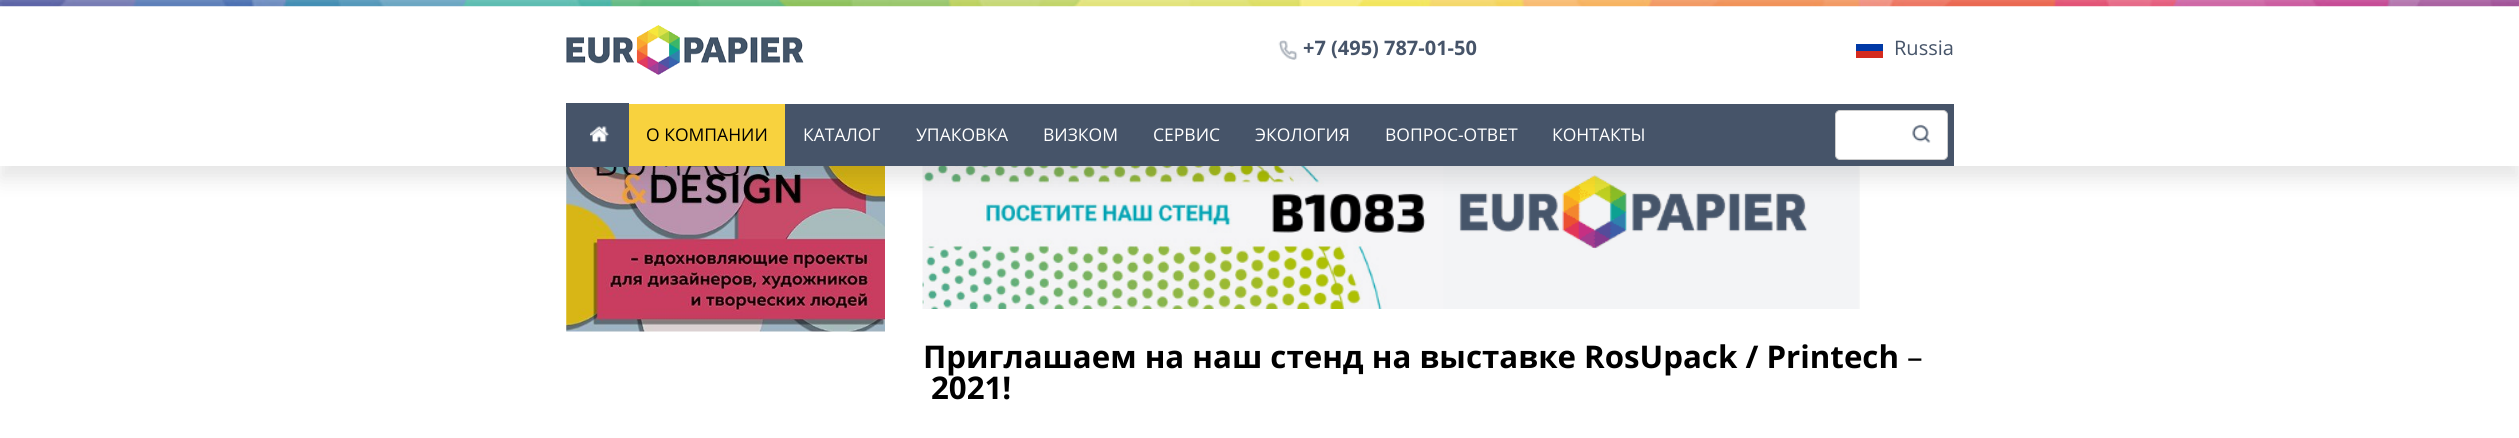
#include <cairo.h>
#include <math.h>
#include <stddef.h>


static void round_rect(cairo_t *cr, double x, double y, double w, double h, double r) {
    cairo_new_sub_path(cr);
    cairo_arc(cr, x + w - r, y + h - r, r, 0, M_PI / 2);
    cairo_arc(cr, x + r, y + h - r, r, M_PI / 2, M_PI);
    cairo_arc(cr, x + r, y + r, r, M_PI, 1.5 * M_PI);
    cairo_arc(cr, x + w - r, y + r, r, 1.5 * M_PI, 2 * M_PI);
    cairo_close_path(cr);
}

static void shadow(cairo_t *cr, double x, double y, double w, double h, double r, double blur, double alpha) {
    cairo_push_group_with_content(cr, CAIRO_CONTENT_ALPHA);
    cairo_set_operator(cr, CAIRO_OPERATOR_SOURCE);
    for (int i = 15; i >= -15 && fmin(w, h) + blur * i / 3 > 0; i -= 2) {
        double e = blur * i / 6;
        cairo_set_source_rgba(cr, 0, 0, 0, alpha * erfc((i - 1) / 8.5) / 2);
        round_rect(cr, x - e, y - e, w + 2 * e, h + 2 * e, fmax(0, fmin(r + e + blur * .6, fmin(w, h) / 2 + e)));
        cairo_fill(cr);
    }
    cairo_pattern_t *soft = cairo_pop_group(cr);
    cairo_mask(cr, soft);
    cairo_pattern_destroy(soft);
}

static void picture(cairo_t *cr, const char *path, double x, double y, double w, double h) {
    cairo_surface_t *image = cairo_image_surface_create_from_png(path);
    cairo_save(cr);
    cairo_set_source_surface(cr, image, x, y);
    cairo_rectangle(cr, x, y, w, h);
    cairo_fill(cr);
    cairo_restore(cr);
    cairo_surface_destroy(image);
}

int main(void) {
    cairo_surface_t *surface = cairo_image_surface_create(CAIRO_FORMAT_RGB24, 2519, 438);
    cairo_t *cr = cairo_create(surface);
    cairo_font_options_t *options = cairo_font_options_create();
    cairo_font_options_set_hint_metrics(options, CAIRO_HINT_METRICS_OFF);
    cairo_font_options_set_hint_style(options, CAIRO_HINT_STYLE_NONE);
    cairo_set_font_options(cr, options);
    cairo_set_miter_limit(cr, 4);
    cairo_set_source_rgb(cr, 1, 1, 1);
    cairo_paint(cr);
    picture(cr, "img6.png", 566, 166, 319, 166);
    picture(cr, "img7.png", 922, 166, 938, 143);
    cairo_set_source_rgb(cr, 0, 0, 0);
    shadow(cr, 0, 13, 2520, 166, 0, 10, 0.1);
    cairo_set_source_rgb(cr, 1, 1, 1);
    cairo_rectangle(cr, 0, 6, 2519, 160);
    cairo_fill(cr);
    picture(cr, "img1.png", 0, 0, 2519, 7);
    picture(cr, "img2.png", 566, 25, 238, 50);
    picture(cr, "img3.png", 1278, 40, 20, 20);
    cairo_select_font_face(cr, "Open Sans", CAIRO_FONT_SLANT_NORMAL, CAIRO_FONT_WEIGHT_BOLD);
    cairo_set_font_size(cr, 20);
    cairo_set_source_rgb(cr, 0.275, 0.329, 0.412);
    cairo_move_to(cr, 1303, 55);
    cairo_show_text(cr, "+7 (495) 787-01-50");
    cairo_set_source_rgb(cr, 0, 0.224, 0.651);
    cairo_rectangle(cr, 1856, 44, 27, 7);
    cairo_fill(cr);
    cairo_set_source_rgb(cr, 0.835, 0.169, 0.118);
    cairo_rectangle(cr, 1856, 51, 27, 7);
    cairo_fill(cr);
    cairo_select_font_face(cr, "Open Sans", CAIRO_FONT_SLANT_NORMAL, CAIRO_FONT_WEIGHT_NORMAL);
    cairo_set_source_rgb(cr, 0.275, 0.329, 0.412);
    cairo_move_to(cr, 1894, 55);
    cairo_show_text(cr, "Russia");
    cairo_rectangle(cr, 785, 104, 1169, 62);
    cairo_fill(cr);
    cairo_rectangle(cr, 566, 103, 63, 64);
    cairo_fill(cr);
    picture(cr, "img4.png", 590, 126, 19, 17);
    cairo_set_source_rgb(cr, 0.969, 0.824, 0.243);
    cairo_rectangle(cr, 629, 104, 156, 62);
    cairo_fill(cr);
    cairo_set_font_size(cr, 17.5);
    cairo_set_source_rgb(cr, 0, 0, 0);
    cairo_move_to(cr, 646, 141);
    cairo_show_text(cr, "О КОМПАНИИ");
    cairo_set_source_rgb(cr, 1, 1, 1);
    cairo_move_to(cr, 803, 141);
    cairo_show_text(cr, "КАТАЛОГ");
    cairo_move_to(cr, 916, 141);
    cairo_show_text(cr, "УПАКОВКА");
    cairo_move_to(cr, 1043, 141);
    cairo_show_text(cr, "ВИЗКОМ");
    cairo_move_to(cr, 1153, 141);
    cairo_show_text(cr, "СЕРВИС");
    cairo_move_to(cr, 1255, 141);
    cairo_show_text(cr, "ЭКОЛОГИЯ");
    cairo_move_to(cr, 1385, 141);
    cairo_show_text(cr, "ВОПРОС-ОТВЕТ");
    cairo_move_to(cr, 1552, 141);
    cairo_show_text(cr, "КОНТАКТЫ");
    round_rect(cr, 1835.5, 110.5, 112, 49, 4.5);
    cairo_fill_preserve(cr);
    cairo_set_source_rgb(cr, 0.8, 0.8, 0.8);
    cairo_set_line_width(cr, 1);
    cairo_stroke(cr);
    picture(cr, "img5.png", 1912, 124, 19, 19);
    cairo_select_font_face(cr, "Open Sans", CAIRO_FONT_SLANT_NORMAL, CAIRO_FONT_WEIGHT_BOLD);
    cairo_set_font_size(cr, 31.25);
    cairo_set_source_rgb(cr, 0, 0, 0);
    cairo_move_to(cr, 923, 368);
    cairo_show_text(cr, "Приглашаем на наш стенд на выставке RosUpack / Printech");
    cairo_select_font_face(cr, "Open Sans", CAIRO_FONT_SLANT_NORMAL, CAIRO_FONT_WEIGHT_NORMAL);
    cairo_move_to(cr, 1907, 368);
    cairo_show_text(cr, "–");
    cairo_select_font_face(cr, "Open Sans", CAIRO_FONT_SLANT_NORMAL, CAIRO_FONT_WEIGHT_BOLD);
    cairo_move_to(cr, 931, 399);
    cairo_show_text(cr, "2021!");
    cairo_surface_write_to_png(surface, "page.png");
    cairo_font_options_destroy(options);
    cairo_destroy(cr);
    cairo_surface_destroy(surface);
    return 0;
}
